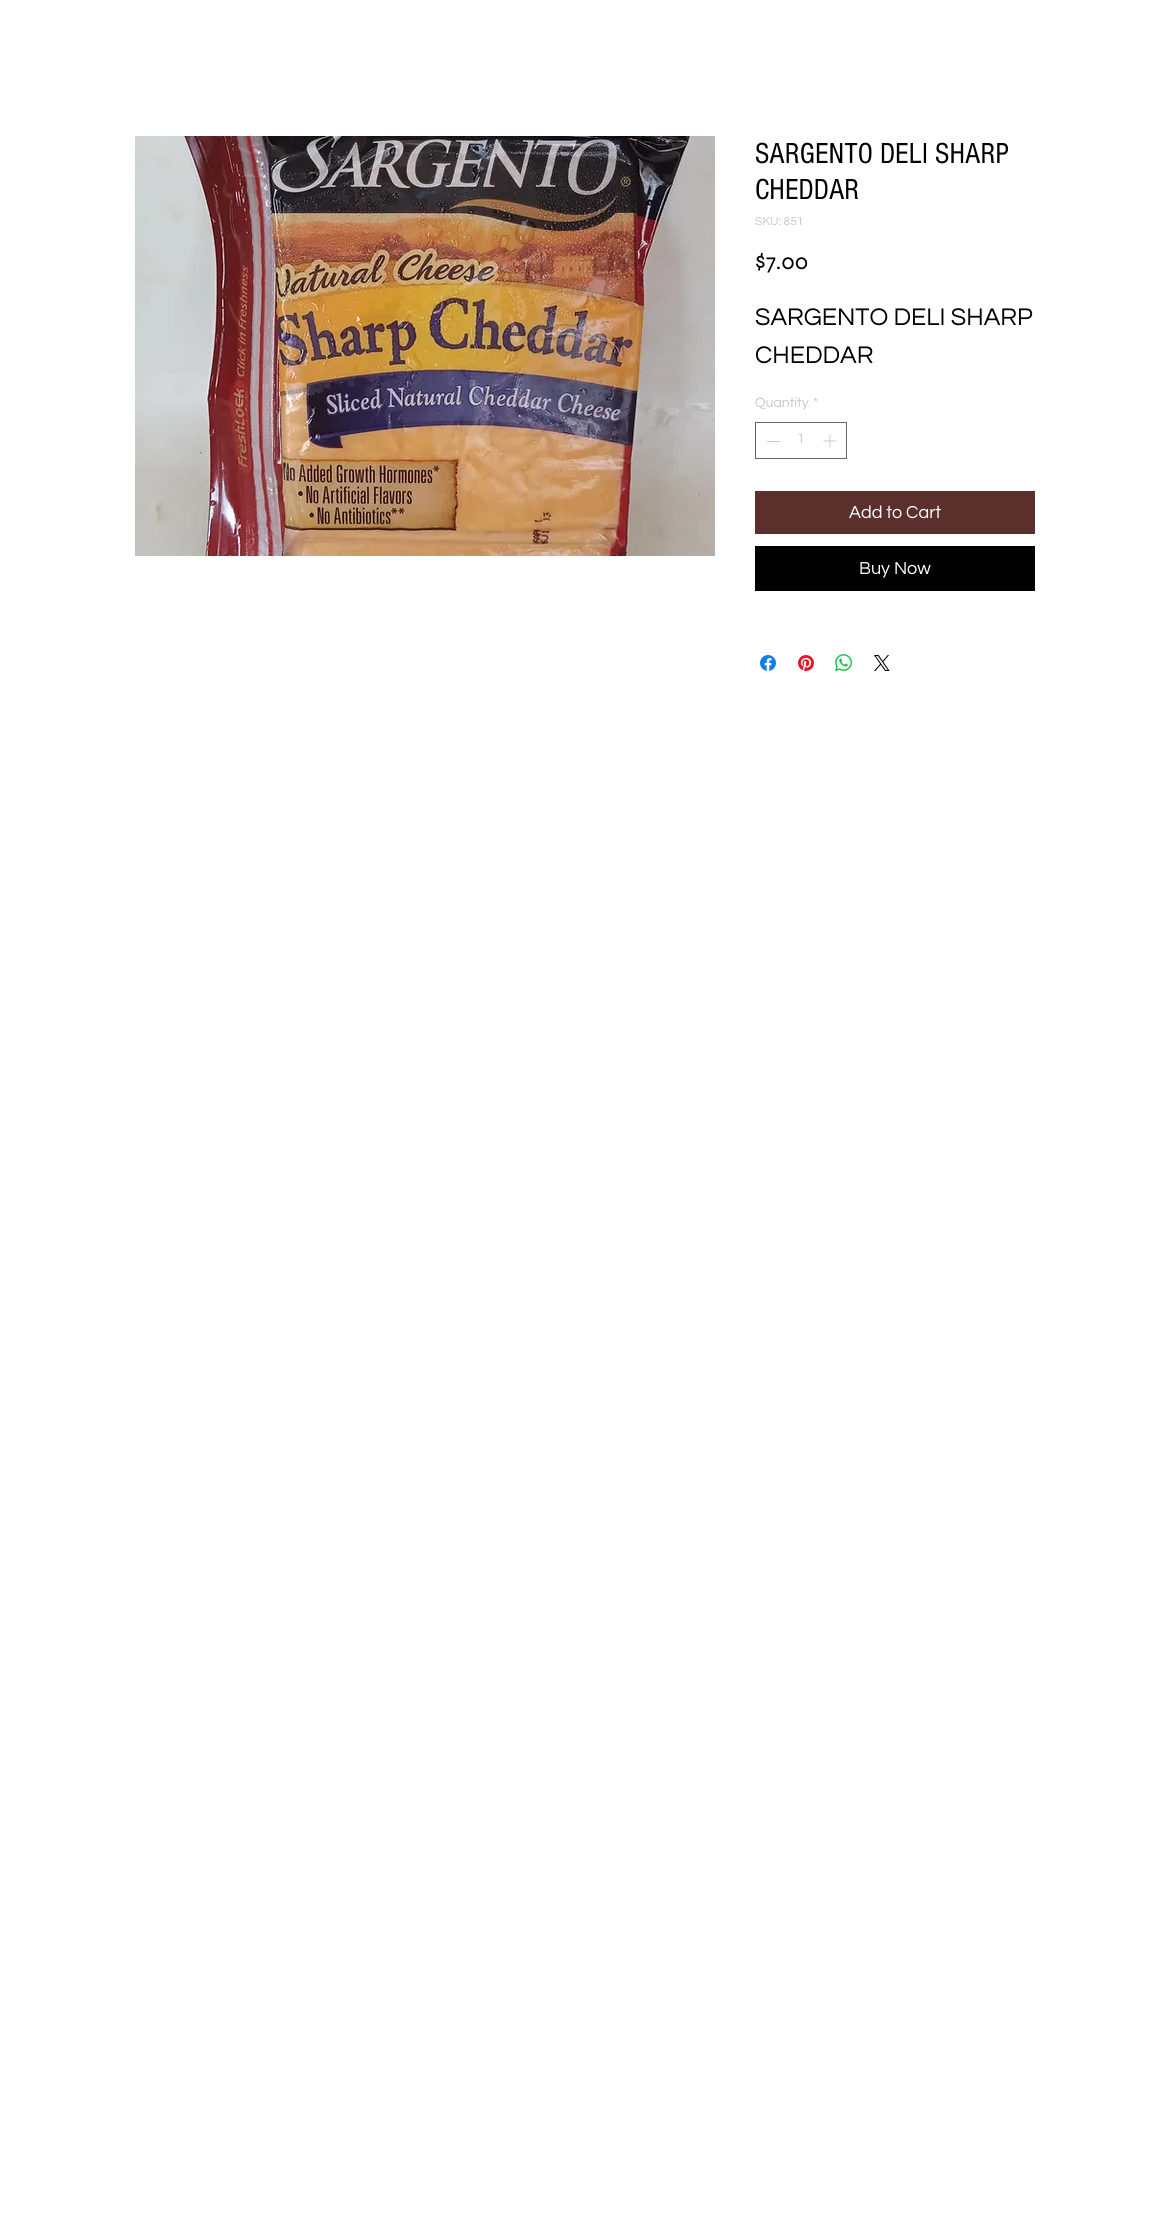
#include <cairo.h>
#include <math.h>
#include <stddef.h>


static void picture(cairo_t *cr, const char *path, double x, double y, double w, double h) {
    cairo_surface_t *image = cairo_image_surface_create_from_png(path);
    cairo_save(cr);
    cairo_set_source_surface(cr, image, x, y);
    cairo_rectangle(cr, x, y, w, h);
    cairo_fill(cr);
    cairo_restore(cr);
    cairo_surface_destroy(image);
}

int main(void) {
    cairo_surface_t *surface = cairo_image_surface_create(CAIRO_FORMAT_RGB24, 1170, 2216);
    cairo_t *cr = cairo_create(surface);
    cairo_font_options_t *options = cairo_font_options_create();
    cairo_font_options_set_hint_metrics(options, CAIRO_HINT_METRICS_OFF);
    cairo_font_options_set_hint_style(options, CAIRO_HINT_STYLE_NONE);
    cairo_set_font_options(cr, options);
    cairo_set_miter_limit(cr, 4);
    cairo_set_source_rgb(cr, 1, 1, 1);
    cairo_paint(cr);
    picture(cr, "img1.png", 135, 136, 580, 420);
    cairo_select_font_face(cr, "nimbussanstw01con", CAIRO_FONT_SLANT_NORMAL, CAIRO_FONT_WEIGHT_NORMAL);
    cairo_set_font_size(cr, 30);
    cairo_set_source_rgb(cr, 0, 0, 0);
    cairo_move_to(cr, 755, 163);
    cairo_show_text(cr, "SARGENTO DELI SHARP");
    cairo_move_to(cr, 755, 199);
    cairo_show_text(cr, "CHEDDAR");
    cairo_select_font_face(cr, "Questrial", CAIRO_FONT_SLANT_NORMAL, CAIRO_FONT_WEIGHT_NORMAL);
    cairo_set_font_size(cr, 12);
    cairo_set_source_rgb(cr, 0.78, 0.78, 0.78);
    cairo_move_to(cr, 755, 225);
    cairo_show_text(cr, "SKU: 851");
    cairo_select_font_face(cr, "Syne", CAIRO_FONT_SLANT_NORMAL, CAIRO_FONT_WEIGHT_NORMAL);
    cairo_set_font_size(cr, 23);
    cairo_set_source_rgb(cr, 0, 0, 0);
    cairo_move_to(cr, 755, 269);
    cairo_show_text(cr, "$7.00");
    cairo_select_font_face(cr, "Questrial", CAIRO_FONT_SLANT_NORMAL, CAIRO_FONT_WEIGHT_NORMAL);
    cairo_set_font_size(cr, 25);
    cairo_move_to(cr, 755, 325);
    cairo_show_text(cr, "SARGENTO DELI SHARP");
    cairo_move_to(cr, 755, 363);
    cairo_show_text(cr, "CHEDDAR");
    cairo_set_font_size(cr, 14);
    cairo_set_source_rgb(cr, 0.78, 0.78, 0.78);
    cairo_move_to(cr, 755, 407);
    cairo_show_text(cr, "Quantity");
    cairo_move_to(cr, 813, 407);
    cairo_show_text(cr, "*");
    cairo_rectangle(cr, 755.5, 422.5, 91, 36);
    cairo_set_source_rgb(cr, 0.4, 0.4, 0.4);
    cairo_set_line_width(cr, 1);
    cairo_stroke(cr);
    cairo_set_source_rgb(cr, 0.78, 0.78, 0.78);
    cairo_rectangle(cr, 767, 441, 13, 1);
    cairo_fill(cr);
    cairo_move_to(cr, 797, 443);
    cairo_show_text(cr, "1");
    picture(cr, "img2.png", 823, 434, 14, 14);
    cairo_set_source_rgb(cr, 0.357, 0.184, 0.173);
    cairo_rectangle(cr, 755, 491, 280, 43);
    cairo_fill(cr);
    cairo_set_font_size(cr, 18);
    cairo_set_source_rgb(cr, 1, 1, 1);
    cairo_move_to(cr, 849, 518);
    cairo_show_text(cr, "Add to Cart");
    cairo_set_source_rgb(cr, 0, 0, 0);
    cairo_rectangle(cr, 755, 546, 280, 45);
    cairo_fill(cr);
    cairo_set_source_rgb(cr, 1, 1, 1);
    cairo_move_to(cr, 859, 574);
    cairo_show_text(cr, "Buy Now");
    picture(cr, "img3.png", 760, 655, 16, 16);
    picture(cr, "img4.png", 798, 655, 16, 16);
    picture(cr, "img5.png", 835, 654, 17, 17);
    picture(cr, "img6.png", 874, 655, 16, 16);
    cairo_surface_write_to_png(surface, "page.png");
    cairo_font_options_destroy(options);
    cairo_destroy(cr);
    cairo_surface_destroy(surface);
    return 0;
}
